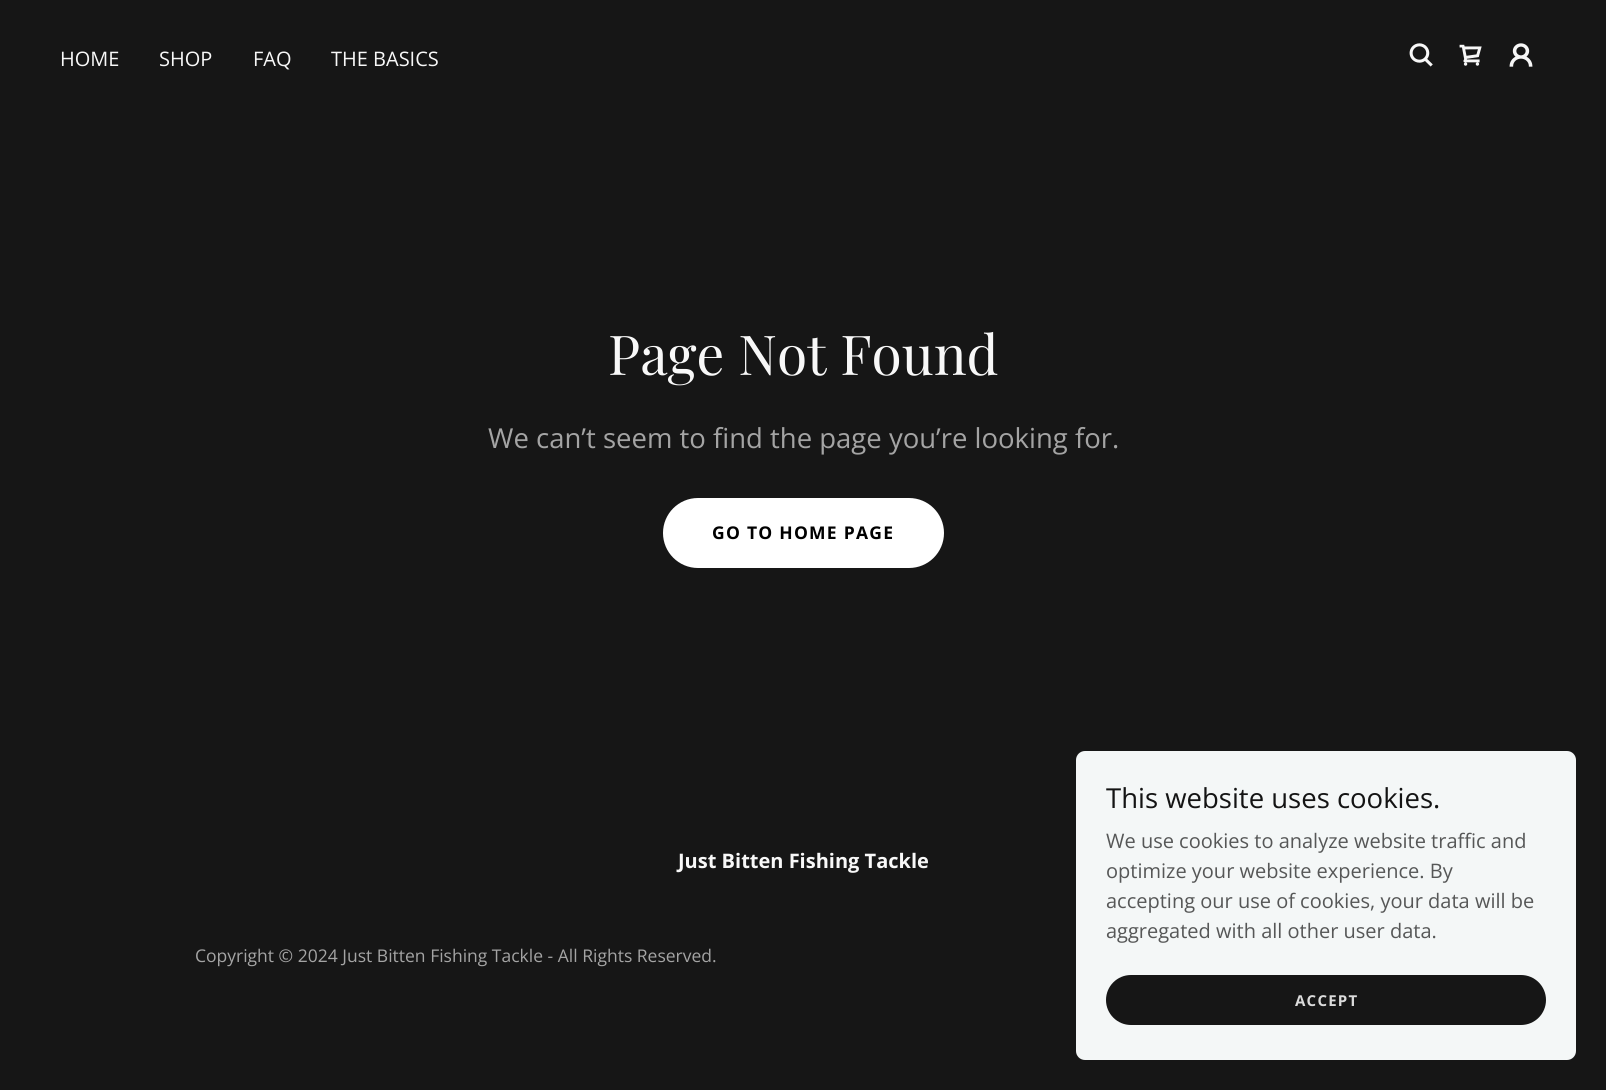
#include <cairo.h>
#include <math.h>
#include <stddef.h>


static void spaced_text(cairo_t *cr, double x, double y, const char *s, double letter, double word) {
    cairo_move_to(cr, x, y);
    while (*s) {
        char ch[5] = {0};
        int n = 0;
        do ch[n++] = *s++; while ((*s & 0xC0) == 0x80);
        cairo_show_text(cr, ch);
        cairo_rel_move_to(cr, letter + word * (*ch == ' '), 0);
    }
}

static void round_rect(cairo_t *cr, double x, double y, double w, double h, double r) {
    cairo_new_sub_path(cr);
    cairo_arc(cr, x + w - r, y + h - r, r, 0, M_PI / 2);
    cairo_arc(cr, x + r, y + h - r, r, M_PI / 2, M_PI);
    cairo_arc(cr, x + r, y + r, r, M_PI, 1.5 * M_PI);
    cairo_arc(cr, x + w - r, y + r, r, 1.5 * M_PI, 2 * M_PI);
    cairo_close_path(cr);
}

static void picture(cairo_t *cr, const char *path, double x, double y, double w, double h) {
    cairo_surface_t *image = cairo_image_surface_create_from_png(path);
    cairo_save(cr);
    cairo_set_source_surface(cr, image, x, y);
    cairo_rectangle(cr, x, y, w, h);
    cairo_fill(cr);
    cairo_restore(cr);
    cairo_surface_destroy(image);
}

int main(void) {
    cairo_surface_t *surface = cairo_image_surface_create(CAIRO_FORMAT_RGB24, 1606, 1090);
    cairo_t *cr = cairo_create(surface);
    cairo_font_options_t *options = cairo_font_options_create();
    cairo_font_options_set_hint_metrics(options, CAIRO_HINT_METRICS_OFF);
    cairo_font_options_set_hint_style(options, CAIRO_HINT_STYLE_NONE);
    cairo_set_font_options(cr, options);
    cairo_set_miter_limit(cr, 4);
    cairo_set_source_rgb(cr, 0.086, 0.086, 0.086);
    cairo_paint(cr);
    cairo_select_font_face(cr, "Open Sans", CAIRO_FONT_SLANT_NORMAL, CAIRO_FONT_WEIGHT_NORMAL);
    cairo_set_font_size(cr, 20);
    cairo_set_source_rgb(cr, 0.969, 0.969, 0.969);
    cairo_move_to(cr, 60, 66);
    cairo_show_text(cr, "HOME");
    cairo_move_to(cr, 159, 66);
    cairo_show_text(cr, "SHOP");
    cairo_move_to(cr, 253, 66);
    cairo_show_text(cr, "FAQ");
    cairo_move_to(cr, 331, 66);
    cairo_show_text(cr, "THE BASICS");
    picture(cr, "img1.png", 1409, 43, 24, 24);
    picture(cr, "img2.png", 1459, 44, 23, 22);
    picture(cr, "img3.png", 1509, 43, 24, 24);
    cairo_select_font_face(cr, "Playfair Display", CAIRO_FONT_SLANT_NORMAL, CAIRO_FONT_WEIGHT_NORMAL);
    cairo_set_font_size(cr, 55);
    cairo_move_to(cr, 608, 375);
    cairo_show_text(cr, "Page Not Found");
    cairo_select_font_face(cr, "Open Sans", CAIRO_FONT_SLANT_NORMAL, CAIRO_FONT_WEIGHT_NORMAL);
    cairo_set_font_size(cr, 27.5);
    cairo_set_source_rgb(cr, 0.643, 0.643, 0.643);
    cairo_move_to(cr, 488, 448);
    cairo_show_text(cr, "We can’t seem to find the page you’re looking for.");
    cairo_set_source_rgb(cr, 1, 1, 1);
    round_rect(cr, 663, 498, 281, 70, 35);
    cairo_fill(cr);
    cairo_select_font_face(cr, "Open Sans", CAIRO_FONT_SLANT_NORMAL, CAIRO_FONT_WEIGHT_BOLD);
    cairo_set_font_size(cr, 17.5);
    cairo_set_source_rgb(cr, 0, 0, 0);
    spaced_text(cr, 712, 539, "GO TO HOME PAGE", 1.25, 0);
    cairo_set_font_size(cr, 20);
    cairo_set_source_rgb(cr, 0.969, 0.969, 0.969);
    cairo_move_to(cr, 678, 868);
    cairo_show_text(cr, "Just Bitten Fishing Tackle");
    cairo_select_font_face(cr, "Open Sans", CAIRO_FONT_SLANT_NORMAL, CAIRO_FONT_WEIGHT_NORMAL);
    cairo_set_font_size(cr, 17.5);
    cairo_set_source_rgb(cr, 0.643, 0.643, 0.643);
    cairo_move_to(cr, 195, 962);
    cairo_show_text(cr, "Copyright © 2024 Just Bitten Fishing Tackle - All Rights Reserved.");
    cairo_set_source_rgb(cr, 0.957, 0.965, 0.965);
    round_rect(cr, 1076, 751, 500, 309, 9);
    cairo_fill(cr);
    cairo_set_font_size(cr, 27.5);
    cairo_set_source_rgb(cr, 0.082, 0.082, 0.082);
    cairo_move_to(cr, 1106, 808);
    cairo_show_text(cr, "This website uses cookies.");
    cairo_set_font_size(cr, 20);
    cairo_set_source_rgb(cr, 0.337, 0.341, 0.341);
    cairo_move_to(cr, 1106, 848);
    cairo_show_text(cr, "We use cookies to analyze website traffic and");
    cairo_move_to(cr, 1106, 878);
    cairo_show_text(cr, "optimize your website experience. By");
    cairo_move_to(cr, 1106, 908);
    cairo_show_text(cr, "accepting our use of cookies, your data will be");
    cairo_move_to(cr, 1106, 938);
    cairo_show_text(cr, "aggregated with all other user data.");
    cairo_set_source_rgb(cr, 0.086, 0.086, 0.086);
    round_rect(cr, 1106, 975, 440, 50, 25);
    cairo_fill(cr);
    cairo_select_font_face(cr, "Open Sans", CAIRO_FONT_SLANT_NORMAL, CAIRO_FONT_WEIGHT_BOLD);
    cairo_set_font_size(cr, 15);
    cairo_set_source_rgb(cr, 0.859, 0.859, 0.859);
    spaced_text(cr, 1295, 1006, "ACCEPT", 1.25, 0);
    cairo_surface_write_to_png(surface, "page.png");
    cairo_font_options_destroy(options);
    cairo_destroy(cr);
    cairo_surface_destroy(surface);
    return 0;
}
